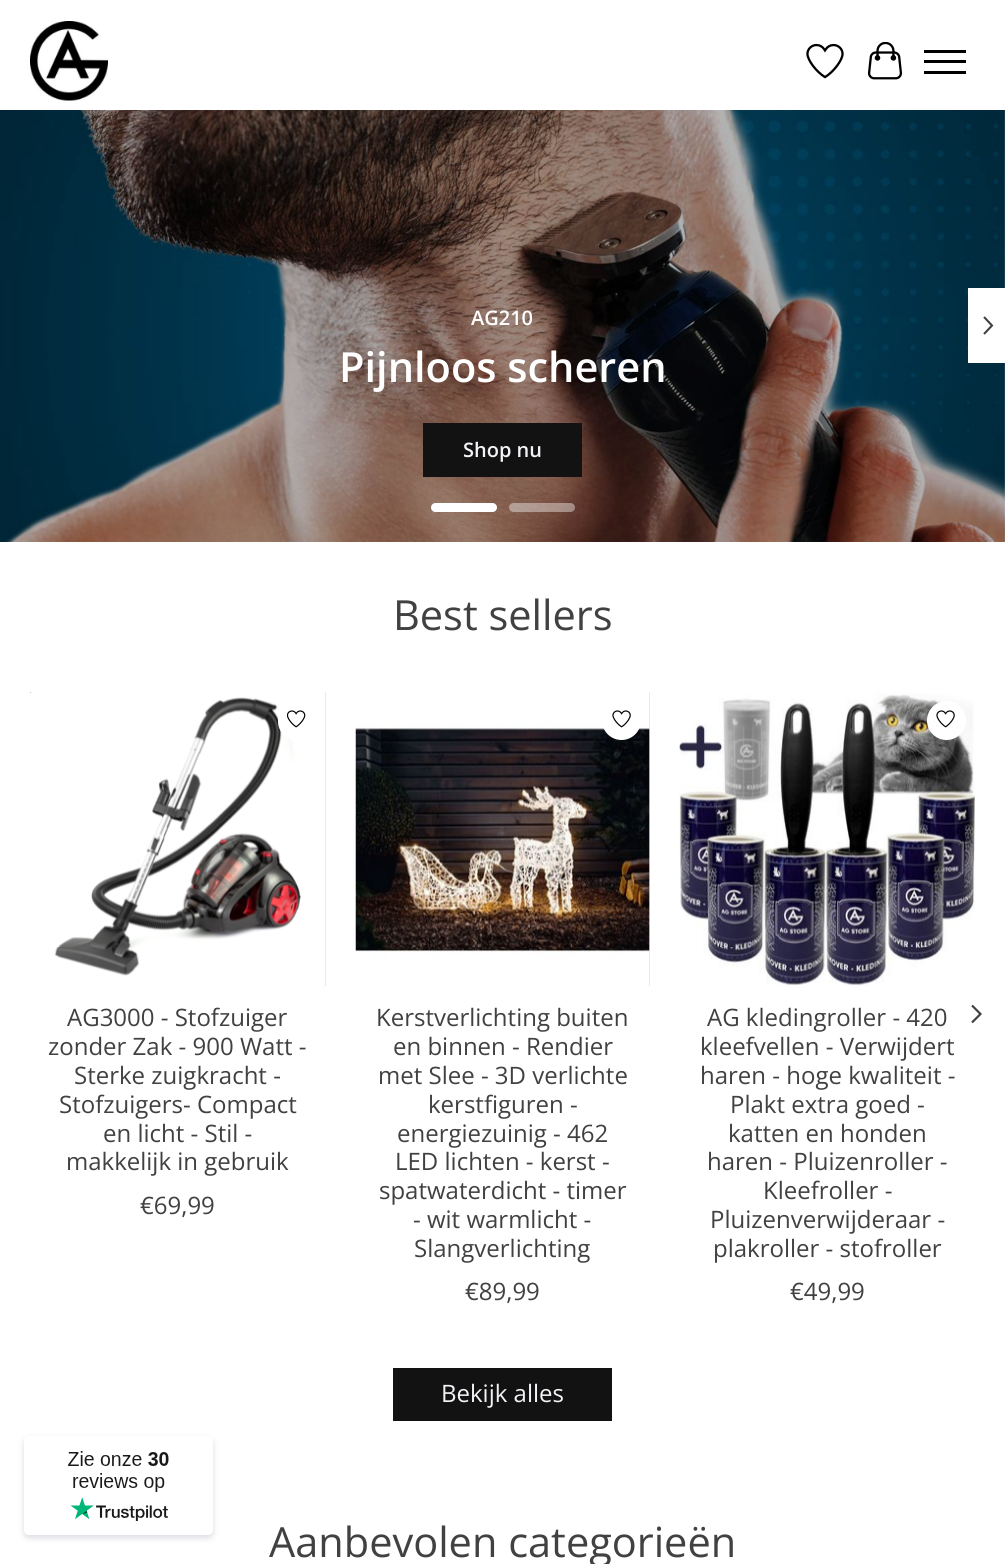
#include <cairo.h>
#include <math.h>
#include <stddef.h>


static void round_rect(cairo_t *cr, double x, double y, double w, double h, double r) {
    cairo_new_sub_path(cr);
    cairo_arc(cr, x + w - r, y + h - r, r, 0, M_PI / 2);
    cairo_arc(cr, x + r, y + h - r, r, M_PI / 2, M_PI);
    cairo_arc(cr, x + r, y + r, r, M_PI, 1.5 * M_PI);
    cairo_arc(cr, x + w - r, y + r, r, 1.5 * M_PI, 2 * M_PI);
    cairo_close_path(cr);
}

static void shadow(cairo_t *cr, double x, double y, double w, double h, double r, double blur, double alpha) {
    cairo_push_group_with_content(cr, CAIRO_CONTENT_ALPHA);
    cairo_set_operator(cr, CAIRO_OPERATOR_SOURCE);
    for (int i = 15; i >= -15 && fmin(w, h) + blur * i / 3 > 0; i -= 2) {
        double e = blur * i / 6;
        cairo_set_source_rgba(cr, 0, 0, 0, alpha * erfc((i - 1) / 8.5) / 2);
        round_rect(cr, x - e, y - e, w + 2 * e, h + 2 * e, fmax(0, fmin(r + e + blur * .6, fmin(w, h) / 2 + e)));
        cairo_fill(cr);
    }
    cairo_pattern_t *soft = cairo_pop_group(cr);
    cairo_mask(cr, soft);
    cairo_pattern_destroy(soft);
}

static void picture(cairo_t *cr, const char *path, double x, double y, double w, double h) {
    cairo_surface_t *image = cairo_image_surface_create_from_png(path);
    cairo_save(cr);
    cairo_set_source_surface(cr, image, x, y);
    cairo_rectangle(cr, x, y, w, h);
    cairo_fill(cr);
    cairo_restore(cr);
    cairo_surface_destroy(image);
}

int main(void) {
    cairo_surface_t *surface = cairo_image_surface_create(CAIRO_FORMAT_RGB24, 1005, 1564);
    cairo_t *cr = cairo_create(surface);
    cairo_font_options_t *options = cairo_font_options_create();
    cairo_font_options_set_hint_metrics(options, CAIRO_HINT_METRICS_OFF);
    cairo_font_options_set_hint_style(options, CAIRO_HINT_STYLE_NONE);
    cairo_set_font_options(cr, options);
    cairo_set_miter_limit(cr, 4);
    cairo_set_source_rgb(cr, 1, 1, 1);
    cairo_paint(cr);
    picture(cr, "img1.png", 30, 21, 78, 80);
    picture(cr, "img2.png", 806, 43, 38, 36);
    picture(cr, "img3.png", 867, 42, 35, 38);
    cairo_set_source_rgb(cr, 0, 0, 0);
    cairo_rectangle(cr, 924, 60, 42, 3);
    cairo_fill(cr);
    cairo_rectangle(cr, 924, 50, 42, 3);
    cairo_fill(cr);
    cairo_rectangle(cr, 924, 71, 42, 3);
    cairo_fill(cr);
    picture(cr, "img4.png", 0, 110, 1005, 432);
    cairo_select_font_face(cr, "Open Sans SemiBold", CAIRO_FONT_SLANT_NORMAL, CAIRO_FONT_WEIGHT_NORMAL);
    cairo_set_font_size(cr, 20);
    cairo_set_source_rgb(cr, 1, 1, 1);
    cairo_move_to(cr, 471, 325);
    cairo_show_text(cr, "AG210");
    cairo_set_font_size(cr, 41.5);
    cairo_move_to(cr, 339, 382);
    cairo_show_text(cr, "Pijnloos scheren");
    cairo_set_source_rgb(cr, 0.071, 0.071, 0.071);
    cairo_rectangle(cr, 423, 423, 159, 54);
    cairo_fill(cr);
    cairo_set_font_size(cr, 20);
    cairo_set_source_rgb(cr, 0.953, 0.949, 0.965);
    cairo_move_to(cr, 463, 457);
    cairo_show_text(cr, "Shop nu");
    cairo_set_source_rgb(cr, 1, 1, 1);
    cairo_rectangle(cr, 968, 288, 37, 75);
    cairo_fill(cr);
    cairo_new_path(cr);
    cairo_move_to(cr, 984, 334);
    cairo_line_to(cr, 992, 325.5);
    cairo_line_to(cr, 984, 317);
    cairo_set_source_rgb(cr, 0.255, 0.255, 0.255);
    cairo_set_line_width(cr, 2.1);
    cairo_stroke(cr);
    cairo_set_source_rgb(cr, 1, 1, 1);
    round_rect(cr, 431, 503, 66, 9, 4.5);
    cairo_fill(cr);
    cairo_set_source_rgba(cr, 1, 1, 1, 0.4);
    round_rect(cr, 509, 503, 66, 9, 4.5);
    cairo_fill(cr);
    cairo_select_font_face(cr, "Open Sans", CAIRO_FONT_SLANT_NORMAL, CAIRO_FONT_WEIGHT_NORMAL);
    cairo_set_font_size(cr, 41.5);
    cairo_set_source_rgb(cr, 0.255, 0.255, 0.255);
    cairo_move_to(cr, 393, 630);
    cairo_show_text(cr, "Best sellers");
    cairo_set_source_rgb(cr, 0.89, 0.89, 0.89);
    cairo_rectangle(cr, 325, 692, 1, 294);
    cairo_fill(cr);
    picture(cr, "img5.png", 30, 692, 296, 296);
    cairo_set_source_rgb(cr, 1, 1, 1);
    round_rect(cr, 278, 701, 37, 39, 18.5);
    cairo_fill(cr);
    picture(cr, "img6.png", 287, 710, 19, 18);
    cairo_set_font_size(cr, 24);
    cairo_set_source_rgb(cr, 0.255, 0.255, 0.255);
    cairo_move_to(cr, 67, 1026);
    cairo_show_text(cr, "AG3000 - Stofzuiger");
    cairo_move_to(cr, 48, 1055);
    cairo_show_text(cr, "zonder Zak - 900 Watt -");
    cairo_move_to(cr, 74, 1084);
    cairo_show_text(cr, "Sterke zuigkracht -");
    cairo_move_to(cr, 59, 1113);
    cairo_show_text(cr, "Stofzuigers- Compact");
    cairo_move_to(cr, 103, 1142);
    cairo_show_text(cr, "en licht - Stil -");
    cairo_move_to(cr, 66, 1170);
    cairo_show_text(cr, "makkelijk in gebruik");
    cairo_move_to(cr, 140, 1214);
    cairo_show_text(cr, "€69,99");
    cairo_set_source_rgb(cr, 0.89, 0.89, 0.89);
    cairo_rectangle(cr, 649, 692, 1, 294);
    cairo_fill(cr);
    picture(cr, "img7.png", 355, 692, 295, 294);
    cairo_set_source_rgb(cr, 1, 1, 1);
    cairo_arc(cr, 621.5, 720.5, 19.5, 0, 2 * M_PI);
    cairo_fill(cr);
    picture(cr, "img8.png", 612, 710, 19, 18);
    cairo_set_source_rgb(cr, 0.255, 0.255, 0.255);
    cairo_move_to(cr, 376, 1026);
    cairo_show_text(cr, "Kerstverlichting buiten");
    cairo_move_to(cr, 393, 1055);
    cairo_show_text(cr, "en binnen - Rendier");
    cairo_move_to(cr, 378, 1084);
    cairo_show_text(cr, "met Slee - 3D verlichte");
    cairo_move_to(cr, 428, 1113);
    cairo_show_text(cr, "kerstfiguren -");
    cairo_move_to(cr, 397, 1142);
    cairo_show_text(cr, "energiezuinig - 462");
    cairo_move_to(cr, 395, 1170);
    cairo_show_text(cr, "LED lichten - kerst -");
    cairo_move_to(cr, 379, 1199);
    cairo_show_text(cr, "spatwaterdicht - timer");
    cairo_move_to(cr, 413, 1228);
    cairo_show_text(cr, "- wit warmlicht -");
    cairo_move_to(cr, 414, 1257);
    cairo_show_text(cr, "Slangverlichting");
    cairo_move_to(cr, 465, 1300);
    cairo_show_text(cr, "€89,99");
    picture(cr, "img9.png", 679, 692, 296, 295);
    cairo_set_source_rgb(cr, 1, 1, 1);
    cairo_arc(cr, 946.5, 720.5, 19.5, 0, 2 * M_PI);
    cairo_fill(cr);
    picture(cr, "img8.png", 936, 710, 19, 18);
    cairo_set_source_rgb(cr, 0.255, 0.255, 0.255);
    cairo_move_to(cr, 707, 1026);
    cairo_show_text(cr, "AG kledingroller - 420");
    cairo_move_to(cr, 700, 1055);
    cairo_show_text(cr, "kleefvellen - Verwijdert");
    cairo_move_to(cr, 700, 1084);
    cairo_show_text(cr, "haren - hoge kwaliteit -");
    cairo_move_to(cr, 730, 1113);
    cairo_show_text(cr, "Plakt extra goed -");
    cairo_move_to(cr, 728, 1142);
    cairo_show_text(cr, "katten en honden");
    cairo_move_to(cr, 707, 1170);
    cairo_show_text(cr, "haren - Pluizenroller -");
    cairo_move_to(cr, 763, 1199);
    cairo_show_text(cr, "Kleefroller -");
    cairo_move_to(cr, 710, 1228);
    cairo_show_text(cr, "Pluizenverwijderaar -");
    cairo_move_to(cr, 713, 1257);
    cairo_show_text(cr, "plakroller - stofroller");
    cairo_move_to(cr, 790, 1300);
    cairo_show_text(cr, "€49,99");
    cairo_new_path(cr);
    cairo_move_to(cr, 972, 1022.5);
    cairo_line_to(cr, 980.5, 1014);
    cairo_line_to(cr, 972, 1005.5);
    cairo_set_line_width(cr, 2.2);
    cairo_stroke(cr);
    cairo_set_source_rgb(cr, 0.071, 0.071, 0.071);
    cairo_rectangle(cr, 393, 1368, 219, 53);
    cairo_fill(cr);
    cairo_set_source_rgb(cr, 0.953, 0.949, 0.965);
    cairo_move_to(cr, 441, 1402);
    cairo_show_text(cr, "Bekijk alles");
    cairo_set_source_rgb(cr, 0.863, 0.863, 0.902);
    shadow(cr, 24, 1439, 189, 99, 5, 3, 1);
    cairo_set_source_rgb(cr, 1, 1, 1);
    round_rect(cr, 24, 1436, 189, 99, 5);
    cairo_fill(cr);
    picture(cr, "img10.png", 68, 1451, 101, 70);
    cairo_set_font_size(cr, 41.5);
    cairo_set_source_rgb(cr, 0.255, 0.255, 0.255);
    cairo_move_to(cr, 269, 1557);
    cairo_show_text(cr, "Aanbevolen categorieën");
    cairo_surface_write_to_png(surface, "page.png");
    cairo_font_options_destroy(options);
    cairo_destroy(cr);
    cairo_surface_destroy(surface);
    return 0;
}
